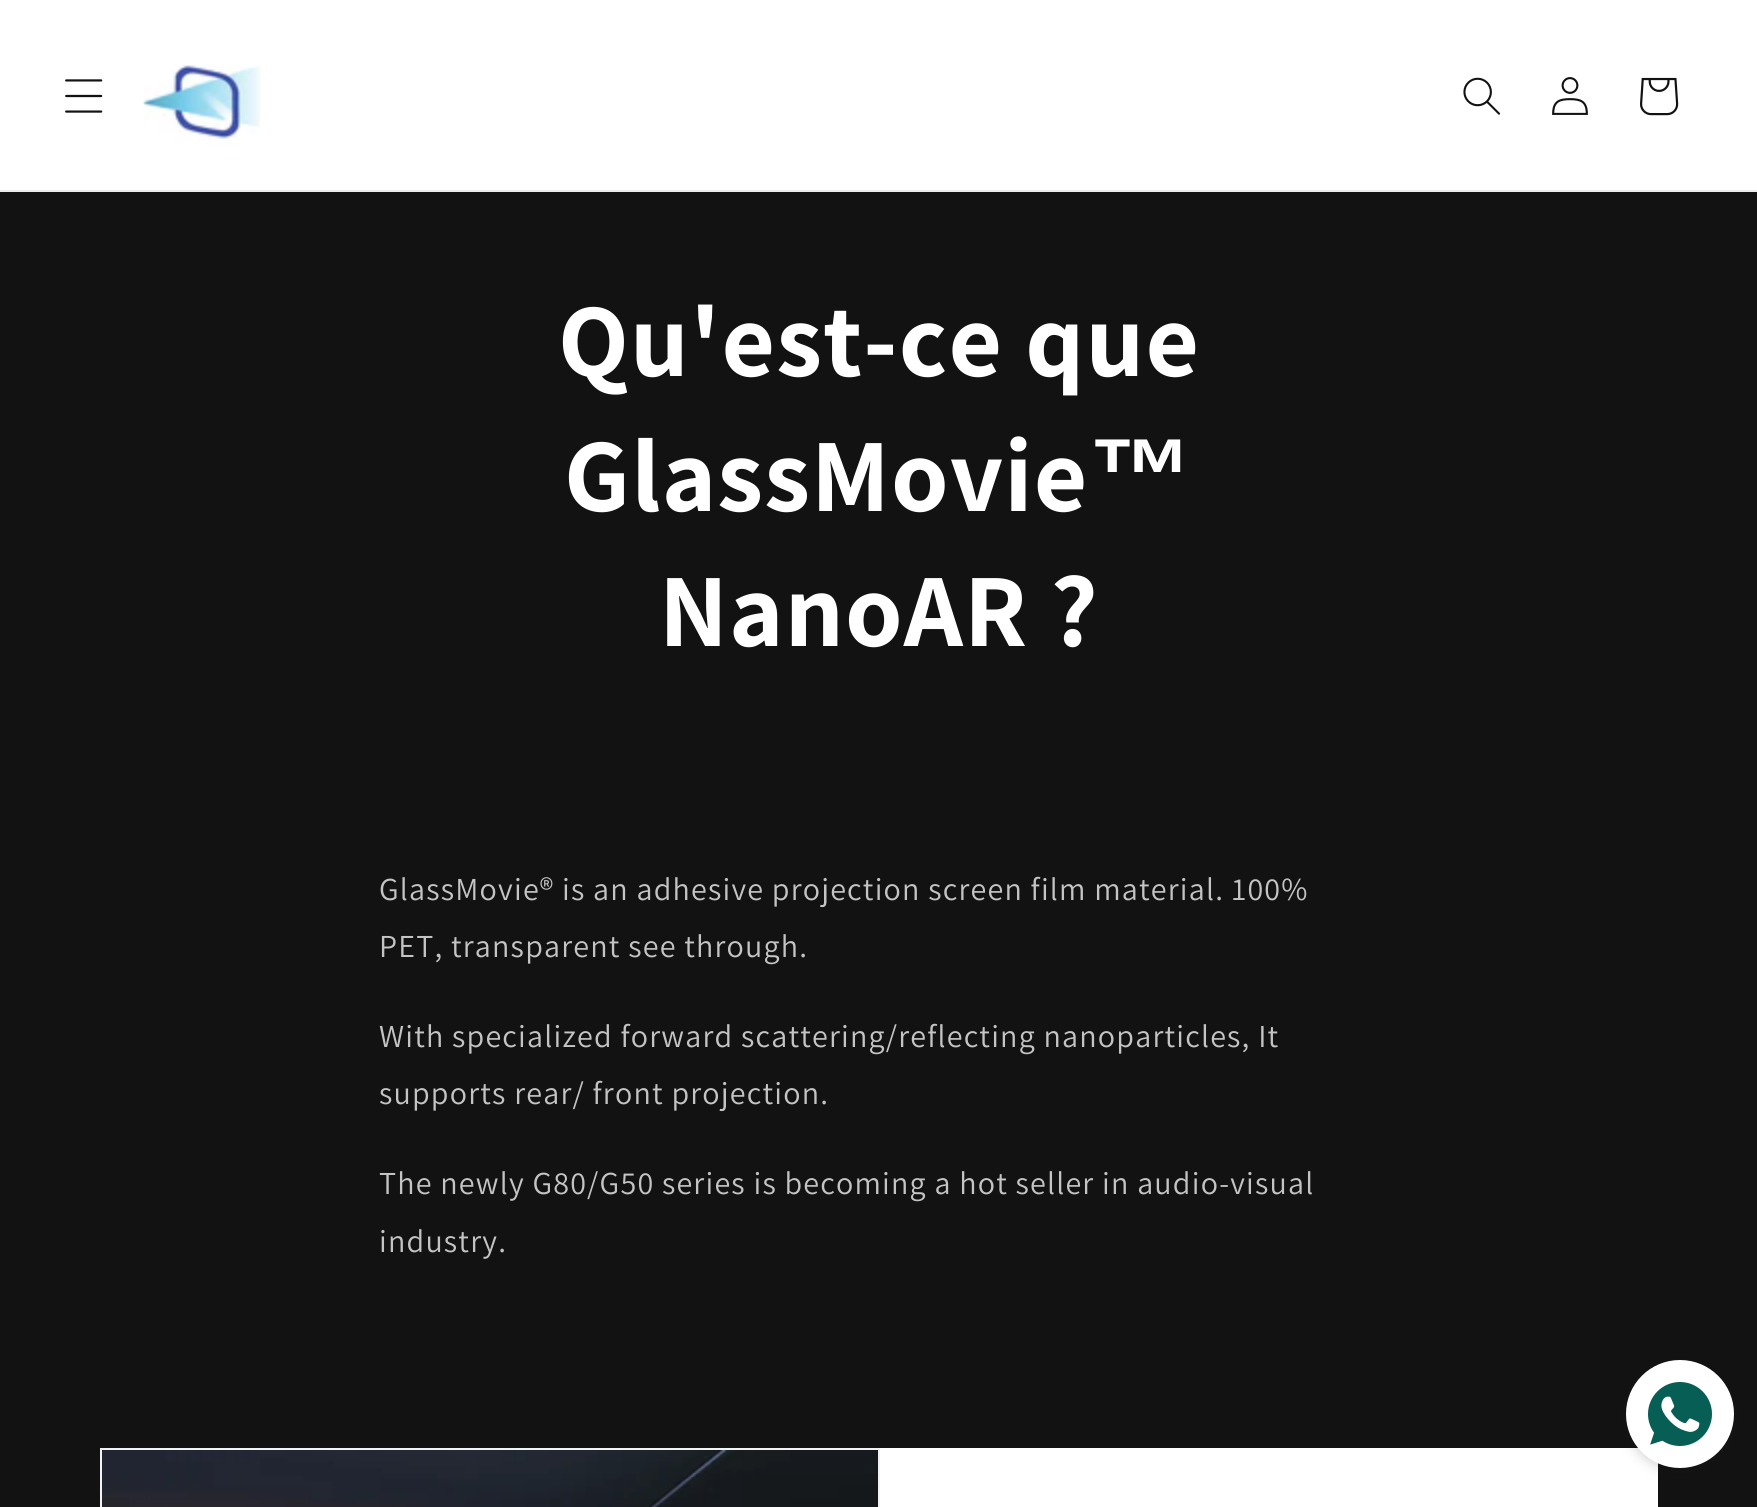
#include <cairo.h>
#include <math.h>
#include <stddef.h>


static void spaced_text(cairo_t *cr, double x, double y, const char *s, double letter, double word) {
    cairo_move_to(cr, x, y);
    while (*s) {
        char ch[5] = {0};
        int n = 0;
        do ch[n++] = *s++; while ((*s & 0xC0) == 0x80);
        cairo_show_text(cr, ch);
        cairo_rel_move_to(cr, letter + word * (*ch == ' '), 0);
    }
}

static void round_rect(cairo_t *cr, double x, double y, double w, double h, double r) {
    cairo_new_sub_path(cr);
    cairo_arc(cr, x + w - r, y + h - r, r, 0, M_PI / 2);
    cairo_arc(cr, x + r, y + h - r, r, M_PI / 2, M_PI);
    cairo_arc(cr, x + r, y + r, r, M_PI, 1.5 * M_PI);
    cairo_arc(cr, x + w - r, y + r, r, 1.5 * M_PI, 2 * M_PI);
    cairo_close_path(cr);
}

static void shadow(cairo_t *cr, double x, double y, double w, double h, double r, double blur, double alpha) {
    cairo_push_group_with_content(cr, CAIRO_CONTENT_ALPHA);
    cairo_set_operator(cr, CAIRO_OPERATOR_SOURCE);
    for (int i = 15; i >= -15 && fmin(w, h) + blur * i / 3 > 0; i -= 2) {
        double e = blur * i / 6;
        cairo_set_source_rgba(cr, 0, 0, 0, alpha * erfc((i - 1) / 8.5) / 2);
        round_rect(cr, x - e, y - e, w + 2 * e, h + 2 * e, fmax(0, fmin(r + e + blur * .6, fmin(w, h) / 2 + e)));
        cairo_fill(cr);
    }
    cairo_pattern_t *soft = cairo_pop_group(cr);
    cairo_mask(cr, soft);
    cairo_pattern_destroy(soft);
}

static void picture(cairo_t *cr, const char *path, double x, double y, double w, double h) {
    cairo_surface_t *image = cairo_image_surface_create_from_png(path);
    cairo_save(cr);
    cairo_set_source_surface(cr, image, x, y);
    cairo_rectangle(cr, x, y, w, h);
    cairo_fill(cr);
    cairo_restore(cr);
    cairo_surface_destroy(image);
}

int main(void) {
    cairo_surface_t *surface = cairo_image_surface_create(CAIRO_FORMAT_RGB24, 1757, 1507);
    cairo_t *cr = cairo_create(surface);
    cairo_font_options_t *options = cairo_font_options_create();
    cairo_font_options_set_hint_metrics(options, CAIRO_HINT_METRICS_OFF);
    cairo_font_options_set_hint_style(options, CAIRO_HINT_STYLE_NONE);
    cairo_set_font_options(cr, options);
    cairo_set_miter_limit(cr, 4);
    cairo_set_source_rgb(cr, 1, 1, 1);
    cairo_paint(cr);
    cairo_set_source_rgb(cr, 0.925, 0.925, 0.925);
    cairo_rectangle(cr, 0, 190, 1757, 2);
    cairo_fill(cr);
    picture(cr, "img1.png", 65, 79, 38, 34);
    picture(cr, "img2.png", 143, 65, 118, 80);
    picture(cr, "img3.png", 1463, 77, 37, 38);
    picture(cr, "img4.png", 1552, 77, 36, 38);
    picture(cr, "img5.png", 1640, 77, 39, 39);
    cairo_set_source_rgb(cr, 0.071, 0.071, 0.071);
    cairo_rectangle(cr, 0, 192, 1757, 1184);
    cairo_fill(cr);
    cairo_select_font_face(cr, "Assistant", CAIRO_FONT_SLANT_NORMAL, CAIRO_FONT_WEIGHT_BOLD);
    cairo_set_font_size(cr, 104);
    cairo_set_source_rgb(cr, 1, 1, 1);
    spaced_text(cr, 558, 376, "Qu'est-ce que", 1.2, 0);
    spaced_text(cr, 564, 511, "GlassMovie", 1.2, 0);
    cairo_select_font_face(cr, "Liberation Sans", CAIRO_FONT_SLANT_NORMAL, CAIRO_FONT_WEIGHT_BOLD);
    spaced_text(cr, 1089, 511, "™", 1.2, 0);
    cairo_select_font_face(cr, "Assistant", CAIRO_FONT_SLANT_NORMAL, CAIRO_FONT_WEIGHT_BOLD);
    spaced_text(cr, 659, 646, "NanoAR ?", 1.2, 0);
    cairo_select_font_face(cr, "Assistant", CAIRO_FONT_SLANT_NORMAL, CAIRO_FONT_WEIGHT_NORMAL);
    cairo_set_font_size(cr, 32);
    cairo_set_source_rgb(cr, 0.769, 0.769, 0.769);
    spaced_text(cr, 379, 900, "GlassMovie® is an adhesive projection screen film material. 100%", 1.2, 0);
    spaced_text(cr, 379, 957, "PET, transparent see through.", 1.2, 0);
    spaced_text(cr, 379, 1047, "With specialized forward scattering/reflecting nanoparticles, It", 1.2, 0);
    spaced_text(cr, 379, 1104, "supports rear/ front projection.", 1.2, 0);
    spaced_text(cr, 379, 1194, "The newly G80/G50 series is becoming a hot seller in audio-visual", 1.2, 0);
    spaced_text(cr, 379, 1252, "industry.", 1.2, 0);
    cairo_set_source_rgb(cr, 0.071, 0.071, 0.071);
    cairo_rectangle(cr, 0, 1376, 1757, 131);
    cairo_fill(cr);
    cairo_rectangle(cr, 101, 1449, 778, 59);
    cairo_set_source_rgb(cr, 0.953, 0.953, 0.953);
    cairo_stroke(cr);
    picture(cr, "img6.png", 102, 1450, 776, 57);
    cairo_set_source_rgb(cr, 1, 1, 1);
    cairo_rectangle(cr, 880, 1448, 778, 59);
    cairo_fill(cr);
    cairo_set_source_rgb(cr, 0.106, 0.106, 0.106);
    shadow(cr, 1626, 1362, 108, 108, 54, 6, 0.2);
    cairo_set_source_rgb(cr, 1, 1, 1);
    cairo_arc(cr, 1680, 1414, 53, 0, 2 * M_PI);
    cairo_fill_preserve(cr);
    cairo_stroke(cr);
    picture(cr, "img7.png", 1648, 1382, 64, 64);
    cairo_surface_write_to_png(surface, "page.png");
    cairo_font_options_destroy(options);
    cairo_destroy(cr);
    cairo_surface_destroy(surface);
    return 0;
}
